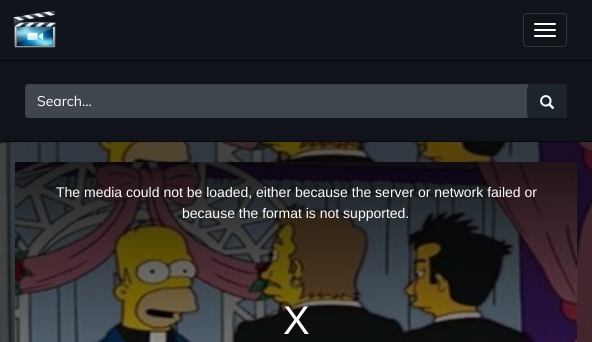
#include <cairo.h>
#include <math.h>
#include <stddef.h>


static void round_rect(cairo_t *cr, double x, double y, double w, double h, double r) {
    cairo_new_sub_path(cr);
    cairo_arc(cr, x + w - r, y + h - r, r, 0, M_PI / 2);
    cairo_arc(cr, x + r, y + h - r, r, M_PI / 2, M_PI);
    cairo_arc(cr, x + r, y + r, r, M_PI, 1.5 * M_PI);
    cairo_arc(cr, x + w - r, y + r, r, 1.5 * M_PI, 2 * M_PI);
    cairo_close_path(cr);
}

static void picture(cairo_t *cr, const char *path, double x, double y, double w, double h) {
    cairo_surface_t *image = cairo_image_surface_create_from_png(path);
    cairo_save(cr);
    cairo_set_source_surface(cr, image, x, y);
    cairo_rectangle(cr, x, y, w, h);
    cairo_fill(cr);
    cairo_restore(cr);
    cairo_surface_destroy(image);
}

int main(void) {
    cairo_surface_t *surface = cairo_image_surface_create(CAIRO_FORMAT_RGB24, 592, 342);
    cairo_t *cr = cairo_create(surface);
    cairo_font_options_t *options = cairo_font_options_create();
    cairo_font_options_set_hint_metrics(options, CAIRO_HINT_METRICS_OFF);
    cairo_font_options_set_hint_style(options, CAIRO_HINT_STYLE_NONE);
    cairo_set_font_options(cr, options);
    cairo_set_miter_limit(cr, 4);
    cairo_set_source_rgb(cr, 1, 1, 1);
    cairo_paint(cr);
    picture(cr, "img1.png", 0, 142, 592, 200);
    cairo_set_source_rgb(cr, 0.063, 0.078, 0.102);
    cairo_rectangle(cr, 0, 0, 592, 60);
    cairo_fill(cr);
    cairo_set_source_rgb(cr, 0.031, 0.031, 0.031);
    cairo_rectangle(cr, 0, 60, 592, 1);
    cairo_fill(cr);
    picture(cr, "img2.png", 13, 10, 43, 38);
    round_rect(cr, 523.5, 13.5, 43, 33, 3.5);
    cairo_set_source_rgb(cr, 0.2, 0.2, 0.2);
    cairo_set_line_width(cr, 1);
    cairo_stroke(cr);
    cairo_set_source_rgb(cr, 1, 1, 1);
    round_rect(cr, 534, 23, 22, 2, 1);
    cairo_fill(cr);
    round_rect(cr, 534, 29, 22, 2, 1);
    cairo_fill(cr);
    round_rect(cr, 534, 35, 22, 2, 1);
    cairo_fill(cr);
    cairo_set_source_rgb(cr, 0.063, 0.078, 0.102);
    cairo_rectangle(cr, 0, 61, 592, 80);
    cairo_fill(cr);
    cairo_set_source_rgb(cr, 0.031, 0.031, 0.031);
    cairo_rectangle(cr, 0, 141, 592, 1);
    cairo_fill(cr);
    cairo_set_source_rgb(cr, 0.11, 0.141, 0.173);
    cairo_rectangle(cr, 25, 84, 542, 34);
    cairo_fill(cr);
    cairo_set_source_rgb(cr, 0.247, 0.275, 0.298);
    cairo_new_path(cr);
    cairo_move_to(cr, 29, 84);
    cairo_line_to(cr, 528, 84);
    cairo_line_to(cr, 528, 118);
    cairo_line_to(cr, 29, 118);
    cairo_curve_to(cr, 27, 118, 25, 116, 25, 114);
    cairo_line_to(cr, 25, 88);
    cairo_curve_to(cr, 25, 86, 27, 84, 29, 84);
    cairo_close_path(cr);
    cairo_fill(cr);
    cairo_set_source_rgba(cr, 0, 0, 0, 0.07);
    cairo_new_path(cr);
    cairo_move_to(cr, 29, 85);
    cairo_line_to(cr, 528, 85);
    cairo_line_to(cr, 528, 84);
    cairo_line_to(cr, 29, 84);
    cairo_curve_to(cr, 26, 84, 25, 86, 25, 89);
    cairo_curve_to(cr, 25, 87, 27, 85, 29, 85);
    cairo_close_path(cr);
    cairo_fill(cr);
    cairo_select_font_face(cr, "Muli", CAIRO_FONT_SLANT_NORMAL, CAIRO_FONT_WEIGHT_NORMAL);
    cairo_set_font_size(cr, 14);
    cairo_set_source_rgb(cr, 1, 1, 1);
    cairo_move_to(cr, 37, 106);
    cairo_show_text(cr, "Search...");
    cairo_set_source_rgb(cr, 0.11, 0.141, 0.173);
    cairo_new_path(cr);
    cairo_move_to(cr, 527, 87);
    cairo_line_to(cr, 563, 87);
    cairo_curve_to(cr, 565, 87, 567, 89, 567, 91);
    cairo_line_to(cr, 567, 111);
    cairo_curve_to(cr, 567, 113, 565, 115, 563, 115);
    cairo_line_to(cr, 527, 115);
    cairo_close_path(cr);
    cairo_fill(cr);
    picture(cr, "img3.png", 540, 95, 15, 14);
    picture(cr, "img4.png", 15, 162, 562, 180);
    cairo_select_font_face(cr, "Liberation Sans", CAIRO_FONT_SLANT_NORMAL, CAIRO_FONT_WEIGHT_NORMAL);
    cairo_set_source_rgb(cr, 1, 1, 1);
    cairo_move_to(cr, 56, 197);
    cairo_show_text(cr, "The media could not be loaded, either because the server or network failed or");
    cairo_move_to(cr, 182, 218);
    cairo_show_text(cr, "because the format is not supported.");
    cairo_set_font_size(cr, 40);
    cairo_move_to(cr, 283, 334);
    cairo_show_text(cr, "X");
    cairo_surface_write_to_png(surface, "page.png");
    cairo_font_options_destroy(options);
    cairo_destroy(cr);
    cairo_surface_destroy(surface);
    return 0;
}
